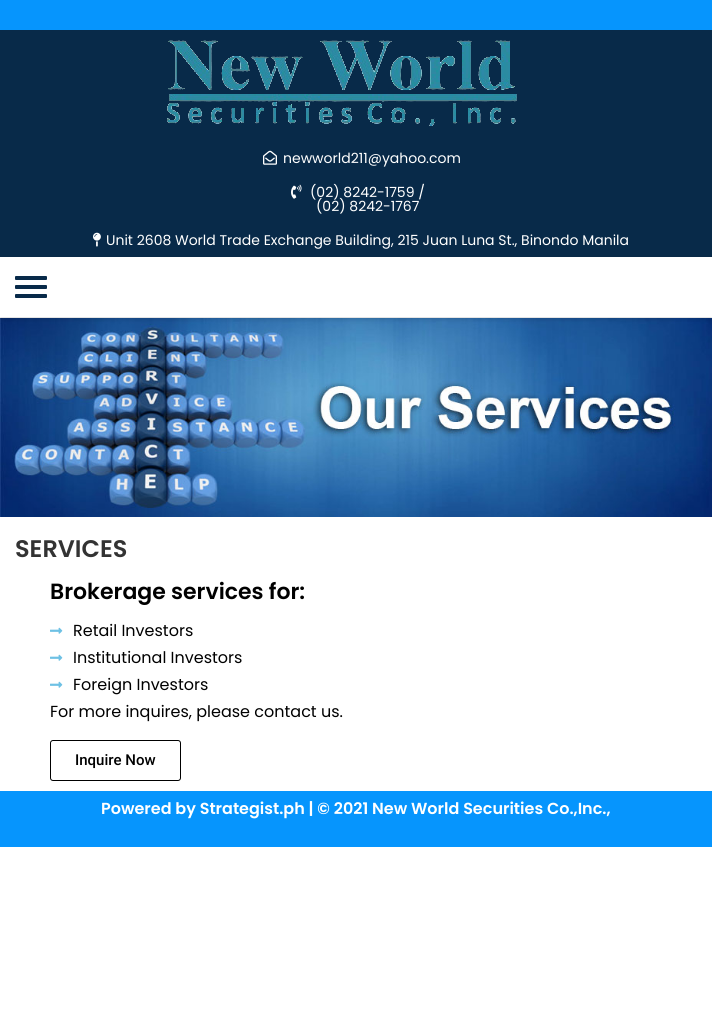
#include <cairo.h>
#include <math.h>
#include <stddef.h>


static void round_rect(cairo_t *cr, double x, double y, double w, double h, double r) {
    cairo_new_sub_path(cr);
    cairo_arc(cr, x + w - r, y + h - r, r, 0, M_PI / 2);
    cairo_arc(cr, x + r, y + h - r, r, M_PI / 2, M_PI);
    cairo_arc(cr, x + r, y + r, r, M_PI, 1.5 * M_PI);
    cairo_arc(cr, x + w - r, y + r, r, 1.5 * M_PI, 2 * M_PI);
    cairo_close_path(cr);
}

static void shadow(cairo_t *cr, double x, double y, double w, double h, double r, double blur, double alpha) {
    cairo_push_group_with_content(cr, CAIRO_CONTENT_ALPHA);
    cairo_set_operator(cr, CAIRO_OPERATOR_SOURCE);
    for (int i = 15; i >= -15 && fmin(w, h) + blur * i / 3 > 0; i -= 2) {
        double e = blur * i / 6;
        cairo_set_source_rgba(cr, 0, 0, 0, alpha * erfc((i - 1) / 8.5) / 2);
        round_rect(cr, x - e, y - e, w + 2 * e, h + 2 * e, fmax(0, fmin(r + e + blur * .6, fmin(w, h) / 2 + e)));
        cairo_fill(cr);
    }
    cairo_pattern_t *soft = cairo_pop_group(cr);
    cairo_mask(cr, soft);
    cairo_pattern_destroy(soft);
}

static void picture(cairo_t *cr, const char *path, double x, double y, double w, double h) {
    cairo_surface_t *image = cairo_image_surface_create_from_png(path);
    cairo_save(cr);
    cairo_set_source_surface(cr, image, x, y);
    cairo_rectangle(cr, x, y, w, h);
    cairo_fill(cr);
    cairo_restore(cr);
    cairo_surface_destroy(image);
}

int main(void) {
    cairo_surface_t *surface = cairo_image_surface_create(CAIRO_FORMAT_RGB24, 712, 1013);
    cairo_t *cr = cairo_create(surface);
    cairo_font_options_t *options = cairo_font_options_create();
    cairo_font_options_set_hint_metrics(options, CAIRO_HINT_METRICS_OFF);
    cairo_font_options_set_hint_style(options, CAIRO_HINT_STYLE_NONE);
    cairo_set_font_options(cr, options);
    cairo_set_miter_limit(cr, 4);
    cairo_set_source_rgb(cr, 1, 1, 1);
    cairo_paint(cr);
    cairo_set_source_rgb(cr, 0.024, 0.584, 0.992);
    cairo_rectangle(cr, 0, 0, 712, 30);
    cairo_fill(cr);
    cairo_set_source_rgb(cr, 0.035, 0.165, 0.286);
    cairo_rectangle(cr, 0, 30, 712, 227);
    cairo_fill(cr);
    picture(cr, "img1.png", 167, 40, 350, 86);
    picture(cr, "img2.png", 263, 150, 14, 15);
    cairo_select_font_face(cr, "Poppins", CAIRO_FONT_SLANT_NORMAL, CAIRO_FONT_WEIGHT_NORMAL);
    cairo_set_font_size(cr, 14);
    cairo_set_source_rgb(cr, 1, 1, 1);
    cairo_move_to(cr, 283, 163);
    cairo_show_text(cr, "newworld211@yahoo.com");
    picture(cr, "img3.png", 291, 184, 11, 15);
    cairo_move_to(cr, 310, 197);
    cairo_show_text(cr, "(02) 8242-1759 /");
    cairo_move_to(cr, 316, 211);
    cairo_show_text(cr, "(02) 8242-1767");
    picture(cr, "img4.png", 93, 232, 8, 15);
    cairo_move_to(cr, 106, 245);
    cairo_show_text(cr, "Unit 2608 World Trade Exchange Building, 215 Juan Luna St., Binondo Manila");
    picture(cr, "img5.png", 0, 318, 712, 199);
    cairo_save(cr);
    cairo_set_fill_rule(cr, CAIRO_FILL_RULE_EVEN_ODD);
    cairo_new_path(cr);
    cairo_move_to(cr, 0, 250);
    cairo_line_to(cr, 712, 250);
    cairo_line_to(cr, 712, 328);
    cairo_line_to(cr, 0, 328);
    cairo_close_path(cr);
    cairo_move_to(cr, 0, 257);
    cairo_line_to(cr, 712, 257);
    cairo_line_to(cr, 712, 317);
    cairo_line_to(cr, 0, 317);
    cairo_close_path(cr);
    cairo_clip(cr);
    cairo_set_source_rgb(cr, 0, 0, 0);
    shadow(cr, 0, 259, 712, 60, 0, 2.5, 0.15);
    cairo_restore(cr);
    cairo_set_source_rgb(cr, 0.035, 0.165, 0.286);
    round_rect(cr, 15, 276, 32, 4, 1);
    cairo_fill(cr);
    round_rect(cr, 15, 285, 32, 4, 1);
    cairo_fill(cr);
    round_rect(cr, 15, 294, 32, 4, 1);
    cairo_fill(cr);
    cairo_select_font_face(cr, "Poppins SemiBold", CAIRO_FONT_SLANT_NORMAL, CAIRO_FONT_WEIGHT_NORMAL);
    cairo_set_font_size(cr, 24);
    cairo_set_source_rgb(cr, 0.2, 0.2, 0.2);
    cairo_move_to(cr, 15, 557);
    cairo_show_text(cr, "SERVICES");
    cairo_set_font_size(cr, 22);
    cairo_set_source_rgb(cr, 0, 0, 0);
    cairo_move_to(cr, 50, 599);
    cairo_show_text(cr, "Brokerage services for:");
    picture(cr, "img6.png", 50, 627, 13, 7);
    cairo_select_font_face(cr, "Poppins", CAIRO_FONT_SLANT_NORMAL, CAIRO_FONT_WEIGHT_NORMAL);
    cairo_set_font_size(cr, 16);
    cairo_move_to(cr, 73, 636);
    cairo_show_text(cr, "Retail Investors");
    picture(cr, "img6.png", 50, 654, 13, 7);
    cairo_move_to(cr, 73, 663);
    cairo_show_text(cr, "Institutional Investors");
    picture(cr, "img6.png", 50, 681, 13, 7);
    cairo_move_to(cr, 73, 690);
    cairo_show_text(cr, "Foreign Investors");
    cairo_move_to(cr, 50, 717);
    cairo_show_text(cr, "For more inquires, please contact us.");
    round_rect(cr, 50.5, 740.5, 130, 40, 2.5);
    cairo_set_line_width(cr, 1);
    cairo_stroke(cr);
    cairo_select_font_face(cr, "Roboto Medium", CAIRO_FONT_SLANT_NORMAL, CAIRO_FONT_WEIGHT_NORMAL);
    cairo_set_font_size(cr, 15);
    cairo_move_to(cr, 75, 765);
    cairo_show_text(cr, "Inquire Now");
    cairo_set_source_rgb(cr, 0.024, 0.584, 0.992);
    cairo_rectangle(cr, 0, 791, 712, 56);
    cairo_fill(cr);
    cairo_select_font_face(cr, "Poppins SemiBold", CAIRO_FONT_SLANT_NORMAL, CAIRO_FONT_WEIGHT_NORMAL);
    cairo_set_font_size(cr, 16);
    cairo_set_source_rgb(cr, 1, 1, 1);
    cairo_move_to(cr, 101, 814);
    cairo_show_text(cr, "Powered by Strategist.ph | © 2021 New World Securities Co.,Inc.,");
    cairo_surface_write_to_png(surface, "page.png");
    cairo_font_options_destroy(options);
    cairo_destroy(cr);
    cairo_surface_destroy(surface);
    return 0;
}
